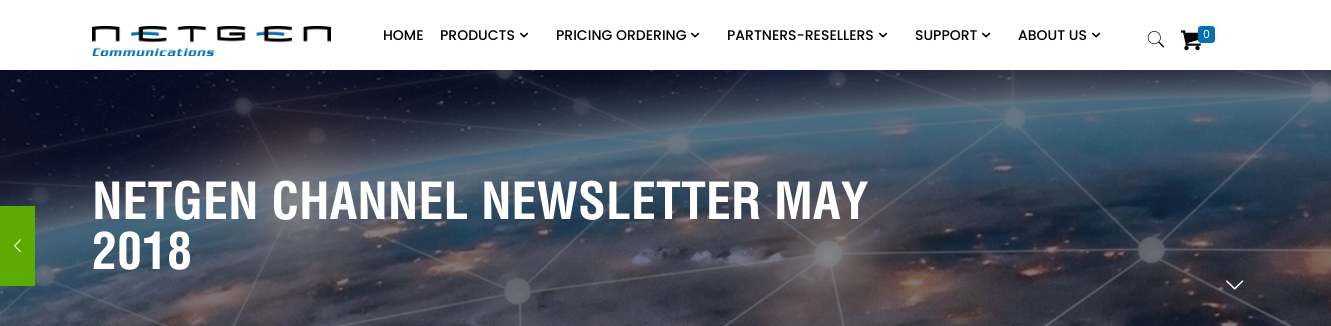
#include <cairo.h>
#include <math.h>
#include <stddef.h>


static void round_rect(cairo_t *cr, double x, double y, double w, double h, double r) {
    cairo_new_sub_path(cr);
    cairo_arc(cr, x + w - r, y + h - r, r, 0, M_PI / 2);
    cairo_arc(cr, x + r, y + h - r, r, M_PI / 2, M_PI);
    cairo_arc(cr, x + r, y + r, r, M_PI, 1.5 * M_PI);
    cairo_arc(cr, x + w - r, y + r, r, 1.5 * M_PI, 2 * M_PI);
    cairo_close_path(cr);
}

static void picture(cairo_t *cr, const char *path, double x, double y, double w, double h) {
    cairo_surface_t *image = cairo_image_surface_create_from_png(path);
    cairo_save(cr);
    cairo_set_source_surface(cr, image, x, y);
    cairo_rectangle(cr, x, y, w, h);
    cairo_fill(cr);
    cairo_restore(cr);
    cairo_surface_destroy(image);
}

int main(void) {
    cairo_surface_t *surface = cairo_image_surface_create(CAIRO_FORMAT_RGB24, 1331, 326);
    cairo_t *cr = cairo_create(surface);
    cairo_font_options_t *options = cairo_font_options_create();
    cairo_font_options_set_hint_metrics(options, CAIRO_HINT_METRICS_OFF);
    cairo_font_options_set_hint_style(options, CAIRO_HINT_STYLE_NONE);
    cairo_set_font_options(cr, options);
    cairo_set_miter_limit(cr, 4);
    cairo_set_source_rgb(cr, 1, 1, 1);
    cairo_paint(cr);
    picture(cr, "img6.png", 0, 70, 1331, 256);
    cairo_set_source_rgb(cr, 0.365, 0.671, 0);
    cairo_rectangle(cr, 0, 206, 35, 80);
    cairo_fill(cr);
    picture(cr, "img1.png", 14, 239, 7, 14);
    picture(cr, "img2.png", 92, 26, 239, 30);
    cairo_select_font_face(cr, "Poppins Medium", CAIRO_FONT_SLANT_NORMAL, CAIRO_FONT_WEIGHT_NORMAL);
    cairo_set_font_size(cr, 14);
    cairo_set_source_rgb(cr, 0, 0, 0);
    cairo_move_to(cr, 383, 40);
    cairo_show_text(cr, "HOME");
    cairo_move_to(cr, 440, 40);
    cairo_show_text(cr, "PRODUCTS");
    picture(cr, "img3.png", 520, 32, 9, 6);
    cairo_move_to(cr, 556, 40);
    cairo_show_text(cr, "PRICING ORDERING");
    picture(cr, "img3.png", 691, 32, 9, 6);
    cairo_move_to(cr, 727, 40);
    cairo_show_text(cr, "PARTNERS-RESELLERS");
    picture(cr, "img3.png", 879, 32, 9, 6);
    cairo_move_to(cr, 915, 40);
    cairo_show_text(cr, "SUPPORT");
    picture(cr, "img3.png", 982, 32, 9, 6);
    cairo_move_to(cr, 1018, 40);
    cairo_show_text(cr, "ABOUT US");
    picture(cr, "img3.png", 1092, 32, 9, 6);
    picture(cr, "img4.png", 1147, 31, 18, 17);
    picture(cr, "img5.png", 1181, 30, 20, 21);
    cairo_set_source_rgb(cr, 0.024, 0.435, 0.694);
    round_rect(cr, 1198, 26, 17, 17, 3);
    cairo_fill(cr);
    cairo_select_font_face(cr, "Poppins", CAIRO_FONT_SLANT_NORMAL, CAIRO_FONT_WEIGHT_NORMAL);
    cairo_set_font_size(cr, 11);
    cairo_set_source_rgb(cr, 1, 1, 1);
    cairo_move_to(cr, 1203, 38);
    cairo_show_text(cr, "0");
    cairo_select_font_face(cr, "Helvetica", CAIRO_FONT_SLANT_NORMAL, CAIRO_FONT_WEIGHT_BOLD);
    cairo_set_font_size(cr, 50);
    cairo_move_to(cr, 92, 219);
    cairo_show_text(cr, "NETGEN CHANNEL NEWSLETTER MAY");
    cairo_move_to(cr, 92, 269);
    cairo_show_text(cr, "2018");
    picture(cr, "img7.png", 1226, 280, 18, 10);
    cairo_surface_write_to_png(surface, "page.png");
    cairo_font_options_destroy(options);
    cairo_destroy(cr);
    cairo_surface_destroy(surface);
    return 0;
}
